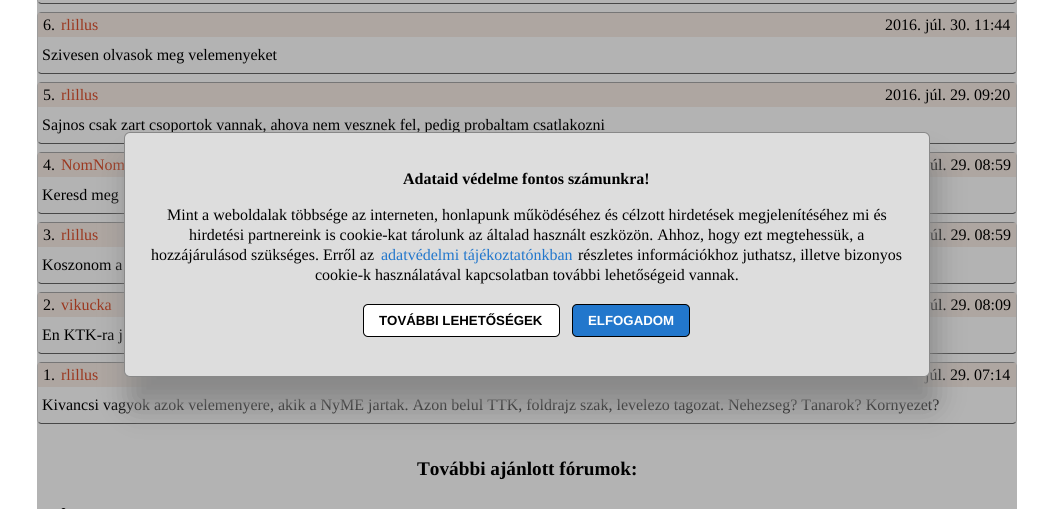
#include <cairo.h>
#include <math.h>
#include <stddef.h>


static void round_rect(cairo_t *cr, double x, double y, double w, double h, double r) {
    cairo_new_sub_path(cr);
    cairo_arc(cr, x + w - r, y + h - r, r, 0, M_PI / 2);
    cairo_arc(cr, x + r, y + h - r, r, M_PI / 2, M_PI);
    cairo_arc(cr, x + r, y + r, r, M_PI, 1.5 * M_PI);
    cairo_arc(cr, x + w - r, y + r, r, 1.5 * M_PI, 2 * M_PI);
    cairo_close_path(cr);
}

static void shadow(cairo_t *cr, double x, double y, double w, double h, double r, double blur, double alpha) {
    cairo_push_group_with_content(cr, CAIRO_CONTENT_ALPHA);
    cairo_set_operator(cr, CAIRO_OPERATOR_SOURCE);
    for (int i = 15; i >= -15 && fmin(w, h) + blur * i / 3 > 0; i -= 2) {
        double e = blur * i / 6;
        cairo_set_source_rgba(cr, 0, 0, 0, alpha * erfc((i - 1) / 8.5) / 2);
        round_rect(cr, x - e, y - e, w + 2 * e, h + 2 * e, fmax(0, fmin(r + e + blur * .6, fmin(w, h) / 2 + e)));
        cairo_fill(cr);
    }
    cairo_pattern_t *soft = cairo_pop_group(cr);
    cairo_mask(cr, soft);
    cairo_pattern_destroy(soft);
}

int main(void) {
    cairo_surface_t *surface = cairo_image_surface_create(CAIRO_FORMAT_RGB24, 1053, 509);
    cairo_t *cr = cairo_create(surface);
    cairo_font_options_t *options = cairo_font_options_create();
    cairo_font_options_set_hint_metrics(options, CAIRO_HINT_METRICS_OFF);
    cairo_font_options_set_hint_style(options, CAIRO_HINT_STYLE_NONE);
    cairo_set_font_options(cr, options);
    cairo_set_miter_limit(cr, 4);
    cairo_set_source_rgb(cr, 1, 1, 1);
    cairo_paint(cr);
    cairo_set_source_rgb(cr, 0.702, 0.702, 0.702);
    cairo_rectangle(cr, 37, 0, 980, 509);
    cairo_fill(cr);
    cairo_new_path(cr);
    cairo_move_to(cr, 1015.5, -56.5);
    cairo_line_to(cr, 1016.5, -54.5);
    cairo_line_to(cr, 1016.5, 0.5);
    cairo_line_to(cr, 1015.5, 2.5);
    cairo_set_source_rgb(cr, 0.608, 0.608, 0.608);
    cairo_set_line_width(cr, 1);
    cairo_stroke(cr);
    cairo_new_path(cr);
    cairo_move_to(cr, 1015.5, 2.5);
    cairo_line_to(cr, 1013, 3.5);
    cairo_line_to(cr, 41, 3.5);
    cairo_line_to(cr, 38.5, 2.5);
    cairo_set_source_rgb(cr, 0.278, 0.278, 0.278);
    cairo_stroke(cr);
    cairo_new_path(cr);
    cairo_move_to(cr, 38.5, 2.5);
    cairo_line_to(cr, 37.5, 0.5);
    cairo_line_to(cr, 37.5, -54.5);
    cairo_line_to(cr, 38.5, -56.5);
    cairo_set_source_rgb(cr, 0.608, 0.608, 0.608);
    cairo_stroke(cr);
    cairo_new_path(cr);
    cairo_move_to(cr, 38.5, 13.5);
    cairo_line_to(cr, 41, 12.5);
    cairo_line_to(cr, 1013, 12.5);
    cairo_line_to(cr, 1015.5, 13.5);
    cairo_set_source_rgb(cr, 0.463, 0.463, 0.463);
    cairo_stroke(cr);
    cairo_new_path(cr);
    cairo_move_to(cr, 1015.5, 13.5);
    cairo_line_to(cr, 1016.5, 15.5);
    cairo_line_to(cr, 1016.5, 70.5);
    cairo_line_to(cr, 1015.5, 72.5);
    cairo_set_source_rgb(cr, 0.608, 0.608, 0.608);
    cairo_stroke(cr);
    cairo_new_path(cr);
    cairo_move_to(cr, 1015.5, 72.5);
    cairo_line_to(cr, 1013, 73.5);
    cairo_line_to(cr, 41, 73.5);
    cairo_line_to(cr, 38.5, 72.5);
    cairo_set_source_rgb(cr, 0.278, 0.278, 0.278);
    cairo_stroke(cr);
    cairo_new_path(cr);
    cairo_move_to(cr, 38.5, 72.5);
    cairo_line_to(cr, 37.5, 70.5);
    cairo_line_to(cr, 37.5, 15.5);
    cairo_line_to(cr, 38.5, 13.5);
    cairo_set_source_rgb(cr, 0.608, 0.608, 0.608);
    cairo_stroke(cr);
    cairo_set_source_rgb(cr, 0.682, 0.651, 0.631);
    cairo_rectangle(cr, 38, 13, 978, 24);
    cairo_fill(cr);
    cairo_select_font_face(cr, "Liberation Serif", CAIRO_FONT_SLANT_NORMAL, CAIRO_FONT_WEIGHT_NORMAL);
    cairo_set_font_size(cr, 16);
    cairo_set_source_rgb(cr, 0, 0, 0);
    cairo_move_to(cr, 43, 30);
    cairo_show_text(cr, "6.");
    cairo_set_source_rgb(cr, 0.608, 0.216, 0.122);
    cairo_move_to(cr, 61, 30);
    cairo_show_text(cr, "rlillus");
    cairo_set_source_rgb(cr, 0, 0, 0);
    cairo_move_to(cr, 885, 30);
    cairo_show_text(cr, "2016. júl. 30. 11:44");
    cairo_move_to(cr, 42, 60);
    cairo_show_text(cr, "Szivesen olvasok meg velemenyeket");
    cairo_new_path(cr);
    cairo_move_to(cr, 38.5, 83.5);
    cairo_line_to(cr, 41, 82.5);
    cairo_line_to(cr, 1013, 82.5);
    cairo_line_to(cr, 1015.5, 83.5);
    cairo_set_source_rgb(cr, 0.463, 0.463, 0.463);
    cairo_stroke(cr);
    cairo_new_path(cr);
    cairo_move_to(cr, 1015.5, 83.5);
    cairo_line_to(cr, 1016.5, 85.5);
    cairo_line_to(cr, 1016.5, 140.5);
    cairo_line_to(cr, 1015.5, 142.5);
    cairo_set_source_rgb(cr, 0.608, 0.608, 0.608);
    cairo_stroke(cr);
    cairo_new_path(cr);
    cairo_move_to(cr, 1015.5, 142.5);
    cairo_line_to(cr, 1013, 143.5);
    cairo_line_to(cr, 41, 143.5);
    cairo_line_to(cr, 38.5, 142.5);
    cairo_set_source_rgb(cr, 0.278, 0.278, 0.278);
    cairo_stroke(cr);
    cairo_new_path(cr);
    cairo_move_to(cr, 38.5, 142.5);
    cairo_line_to(cr, 37.5, 140.5);
    cairo_line_to(cr, 37.5, 85.5);
    cairo_line_to(cr, 38.5, 83.5);
    cairo_set_source_rgb(cr, 0.608, 0.608, 0.608);
    cairo_stroke(cr);
    cairo_set_source_rgb(cr, 0.682, 0.651, 0.631);
    cairo_rectangle(cr, 38, 83, 978, 24);
    cairo_fill(cr);
    cairo_set_source_rgb(cr, 0, 0, 0);
    cairo_move_to(cr, 43, 100);
    cairo_show_text(cr, "5.");
    cairo_set_source_rgb(cr, 0.608, 0.216, 0.122);
    cairo_move_to(cr, 61, 100);
    cairo_show_text(cr, "rlillus");
    cairo_set_source_rgb(cr, 0, 0, 0);
    cairo_move_to(cr, 885, 100);
    cairo_show_text(cr, "2016. júl. 29. 09:20");
    cairo_move_to(cr, 42, 130);
    cairo_show_text(cr, "Sajnos csak zart csoportok vannak, ahova nem vesznek fel, pedig probaltam csatlakozni");
    cairo_new_path(cr);
    cairo_move_to(cr, 38.5, 153.5);
    cairo_line_to(cr, 41, 152.5);
    cairo_line_to(cr, 1013, 152.5);
    cairo_line_to(cr, 1015.5, 153.5);
    cairo_set_source_rgb(cr, 0.463, 0.463, 0.463);
    cairo_stroke(cr);
    cairo_new_path(cr);
    cairo_move_to(cr, 1015.5, 153.5);
    cairo_line_to(cr, 1016.5, 155.5);
    cairo_line_to(cr, 1016.5, 210.5);
    cairo_line_to(cr, 1015.5, 212.5);
    cairo_set_source_rgb(cr, 0.608, 0.608, 0.608);
    cairo_stroke(cr);
    cairo_new_path(cr);
    cairo_move_to(cr, 1015.5, 212.5);
    cairo_line_to(cr, 1013, 213.5);
    cairo_line_to(cr, 41, 213.5);
    cairo_line_to(cr, 38.5, 212.5);
    cairo_set_source_rgb(cr, 0.278, 0.278, 0.278);
    cairo_stroke(cr);
    cairo_new_path(cr);
    cairo_move_to(cr, 38.5, 212.5);
    cairo_line_to(cr, 37.5, 210.5);
    cairo_line_to(cr, 37.5, 155.5);
    cairo_line_to(cr, 38.5, 153.5);
    cairo_set_source_rgb(cr, 0.608, 0.608, 0.608);
    cairo_stroke(cr);
    cairo_set_source_rgb(cr, 0.682, 0.651, 0.631);
    cairo_rectangle(cr, 38, 153, 978, 24);
    cairo_fill(cr);
    cairo_set_source_rgb(cr, 0, 0, 0);
    cairo_move_to(cr, 43, 170);
    cairo_show_text(cr, "4.");
    cairo_set_source_rgb(cr, 0.608, 0.216, 0.122);
    cairo_move_to(cr, 61, 170);
    cairo_show_text(cr, "NomNom");
    cairo_set_source_rgb(cr, 0, 0, 0);
    cairo_move_to(cr, 930, 170);
    cairo_show_text(cr, "úl. 29. 08:59");
    cairo_move_to(cr, 42, 200);
    cairo_show_text(cr, "Keresd meg");
    cairo_new_path(cr);
    cairo_move_to(cr, 38.5, 223.5);
    cairo_line_to(cr, 41, 222.5);
    cairo_line_to(cr, 1013, 222.5);
    cairo_line_to(cr, 1015.5, 223.5);
    cairo_set_source_rgb(cr, 0.463, 0.463, 0.463);
    cairo_stroke(cr);
    cairo_new_path(cr);
    cairo_move_to(cr, 1015.5, 223.5);
    cairo_line_to(cr, 1016.5, 225.5);
    cairo_line_to(cr, 1016.5, 280.5);
    cairo_line_to(cr, 1015.5, 282.5);
    cairo_set_source_rgb(cr, 0.608, 0.608, 0.608);
    cairo_stroke(cr);
    cairo_new_path(cr);
    cairo_move_to(cr, 1015.5, 282.5);
    cairo_line_to(cr, 1013, 283.5);
    cairo_line_to(cr, 41, 283.5);
    cairo_line_to(cr, 38.5, 282.5);
    cairo_set_source_rgb(cr, 0.278, 0.278, 0.278);
    cairo_stroke(cr);
    cairo_new_path(cr);
    cairo_move_to(cr, 38.5, 282.5);
    cairo_line_to(cr, 37.5, 280.5);
    cairo_line_to(cr, 37.5, 225.5);
    cairo_line_to(cr, 38.5, 223.5);
    cairo_set_source_rgb(cr, 0.608, 0.608, 0.608);
    cairo_stroke(cr);
    cairo_set_source_rgb(cr, 0.682, 0.651, 0.631);
    cairo_rectangle(cr, 38, 223, 978, 24);
    cairo_fill(cr);
    cairo_set_source_rgb(cr, 0, 0, 0);
    cairo_move_to(cr, 43, 240);
    cairo_show_text(cr, "3.");
    cairo_set_source_rgb(cr, 0.608, 0.216, 0.122);
    cairo_move_to(cr, 61, 240);
    cairo_show_text(cr, "rlillus");
    cairo_set_source_rgb(cr, 0, 0, 0);
    cairo_move_to(cr, 930, 240);
    cairo_show_text(cr, "úl. 29. 08:59");
    cairo_move_to(cr, 42, 270);
    cairo_show_text(cr, "Koszonom a");
    cairo_new_path(cr);
    cairo_move_to(cr, 38.5, 293.5);
    cairo_line_to(cr, 41, 292.5);
    cairo_line_to(cr, 1013, 292.5);
    cairo_line_to(cr, 1015.5, 293.5);
    cairo_set_source_rgb(cr, 0.463, 0.463, 0.463);
    cairo_stroke(cr);
    cairo_new_path(cr);
    cairo_move_to(cr, 1015.5, 293.5);
    cairo_line_to(cr, 1016.5, 295.5);
    cairo_line_to(cr, 1016.5, 350.5);
    cairo_line_to(cr, 1015.5, 352.5);
    cairo_set_source_rgb(cr, 0.608, 0.608, 0.608);
    cairo_stroke(cr);
    cairo_new_path(cr);
    cairo_move_to(cr, 1015.5, 352.5);
    cairo_line_to(cr, 1013, 353.5);
    cairo_line_to(cr, 41, 353.5);
    cairo_line_to(cr, 38.5, 352.5);
    cairo_set_source_rgb(cr, 0.278, 0.278, 0.278);
    cairo_stroke(cr);
    cairo_new_path(cr);
    cairo_move_to(cr, 38.5, 352.5);
    cairo_line_to(cr, 37.5, 350.5);
    cairo_line_to(cr, 37.5, 295.5);
    cairo_line_to(cr, 38.5, 293.5);
    cairo_set_source_rgb(cr, 0.608, 0.608, 0.608);
    cairo_stroke(cr);
    cairo_set_source_rgb(cr, 0.682, 0.651, 0.631);
    cairo_rectangle(cr, 38, 293, 978, 24);
    cairo_fill(cr);
    cairo_set_source_rgb(cr, 0, 0, 0);
    cairo_move_to(cr, 43, 310);
    cairo_show_text(cr, "2.");
    cairo_set_source_rgb(cr, 0.608, 0.216, 0.122);
    cairo_move_to(cr, 61, 310);
    cairo_show_text(cr, "vikucka");
    cairo_set_source_rgb(cr, 0, 0, 0);
    cairo_move_to(cr, 930, 310);
    cairo_show_text(cr, "úl. 29. 08:09");
    cairo_move_to(cr, 42, 340);
    cairo_show_text(cr, "En KTK-ra j");
    cairo_new_path(cr);
    cairo_move_to(cr, 38.5, 363.5);
    cairo_line_to(cr, 41, 362.5);
    cairo_line_to(cr, 1013, 362.5);
    cairo_line_to(cr, 1015.5, 363.5);
    cairo_set_source_rgb(cr, 0.463, 0.463, 0.463);
    cairo_stroke(cr);
    cairo_new_path(cr);
    cairo_move_to(cr, 1015.5, 363.5);
    cairo_line_to(cr, 1016.5, 365.5);
    cairo_line_to(cr, 1016.5, 420.5);
    cairo_line_to(cr, 1015.5, 422.5);
    cairo_set_source_rgb(cr, 0.608, 0.608, 0.608);
    cairo_stroke(cr);
    cairo_new_path(cr);
    cairo_move_to(cr, 1015.5, 422.5);
    cairo_line_to(cr, 1013, 423.5);
    cairo_line_to(cr, 41, 423.5);
    cairo_line_to(cr, 38.5, 422.5);
    cairo_set_source_rgb(cr, 0.278, 0.278, 0.278);
    cairo_stroke(cr);
    cairo_new_path(cr);
    cairo_move_to(cr, 38.5, 422.5);
    cairo_line_to(cr, 37.5, 420.5);
    cairo_line_to(cr, 37.5, 365.5);
    cairo_line_to(cr, 38.5, 363.5);
    cairo_set_source_rgb(cr, 0.608, 0.608, 0.608);
    cairo_stroke(cr);
    cairo_set_source_rgb(cr, 0.682, 0.651, 0.631);
    cairo_rectangle(cr, 38, 363, 978, 24);
    cairo_fill(cr);
    cairo_set_source_rgb(cr, 0, 0, 0);
    cairo_move_to(cr, 43, 380);
    cairo_show_text(cr, "1.");
    cairo_set_source_rgb(cr, 0.608, 0.216, 0.122);
    cairo_move_to(cr, 61, 380);
    cairo_show_text(cr, "rlillus");
    cairo_set_source_rgb(cr, 0, 0, 0);
    cairo_move_to(cr, 925, 380);
    cairo_show_text(cr, "júl. 29. 07:14");
    cairo_move_to(cr, 42, 410);
    cairo_show_text(cr, "Kivancsi vagyok azok velemenyere, akik a NyME jartak. Azon belul TTK, foldrajz szak, levelezo tagozat. Nehezseg? Tanarok? Kornyezet?");
    cairo_select_font_face(cr, "Liberation Serif", CAIRO_FONT_SLANT_NORMAL, CAIRO_FONT_WEIGHT_BOLD);
    cairo_set_font_size(cr, 19.25);
    cairo_move_to(cr, 417, 475);
    cairo_show_text(cr, "További ajánlott fórumok:");
    round_rect(cr, 61, 508, 5, 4, 2.5);
    cairo_fill(cr);
    cairo_set_source_rgb(cr, 0.533, 0.533, 0.533);
    shadow(cr, 129, 162, 806, 245, 6, 15, 1);
    cairo_set_source_rgb(cr, 0.867, 0.867, 0.867);
    round_rect(cr, 124.5, 132.5, 805, 244, 5.5);
    cairo_fill_preserve(cr);
    cairo_set_source_rgb(cr, 0.533, 0.533, 0.533);
    cairo_stroke(cr);
    cairo_set_font_size(cr, 16);
    cairo_set_source_rgb(cr, 0, 0, 0);
    cairo_move_to(cr, 403, 184);
    cairo_show_text(cr, "Adataid védelme fontos számunkra!");
    cairo_select_font_face(cr, "Liberation Serif", CAIRO_FONT_SLANT_NORMAL, CAIRO_FONT_WEIGHT_NORMAL);
    cairo_move_to(cr, 167, 220);
    cairo_show_text(cr, "Mint a weboldalak többsége az interneten, honlapunk működéséhez és célzott hirdetések megjelenítéséhez mi és");
    cairo_move_to(cr, 189, 240);
    cairo_show_text(cr, "hirdetési partnereink is cookie-kat tárolunk az általad használt eszközön. Ahhoz, hogy ezt megtehessük, a");
    cairo_move_to(cr, 151, 260);
    cairo_show_text(cr, "hozzájárulásod szükséges. Erről az");
    cairo_set_source_rgb(cr, 0.133, 0.467, 0.8);
    cairo_move_to(cr, 381, 260);
    cairo_show_text(cr, "adatvédelmi tájékoztatónkban");
    cairo_set_source_rgb(cr, 0, 0, 0);
    cairo_move_to(cr, 578, 260);
    cairo_show_text(cr, "részletes információkhoz juthatsz, illetve bizonyos");
    cairo_move_to(cr, 315, 280);
    cairo_show_text(cr, "cookie-k használatával kapcsolatban további lehetőségeid vannak.");
    cairo_set_source_rgb(cr, 1, 1, 1);
    round_rect(cr, 363.5, 304.5, 196, 32, 4.5);
    cairo_fill_preserve(cr);
    cairo_set_source_rgb(cr, 0, 0, 0);
    cairo_stroke(cr);
    cairo_select_font_face(cr, "Liberation Sans", CAIRO_FONT_SLANT_NORMAL, CAIRO_FONT_WEIGHT_BOLD);
    cairo_set_font_size(cr, 13.25);
    cairo_move_to(cr, 379, 325);
    cairo_show_text(cr, "TOVÁBBI LEHETŐSÉGEK");
    cairo_set_source_rgb(cr, 0.133, 0.467, 0.8);
    round_rect(cr, 572.5, 304.5, 117, 32, 4.5);
    cairo_fill_preserve(cr);
    cairo_set_source_rgb(cr, 0, 0, 0);
    cairo_stroke(cr);
    cairo_set_source_rgb(cr, 1, 1, 1);
    cairo_move_to(cr, 588, 325);
    cairo_show_text(cr, "ELFOGADOM");
    cairo_surface_write_to_png(surface, "page.png");
    cairo_font_options_destroy(options);
    cairo_destroy(cr);
    cairo_surface_destroy(surface);
    return 0;
}
